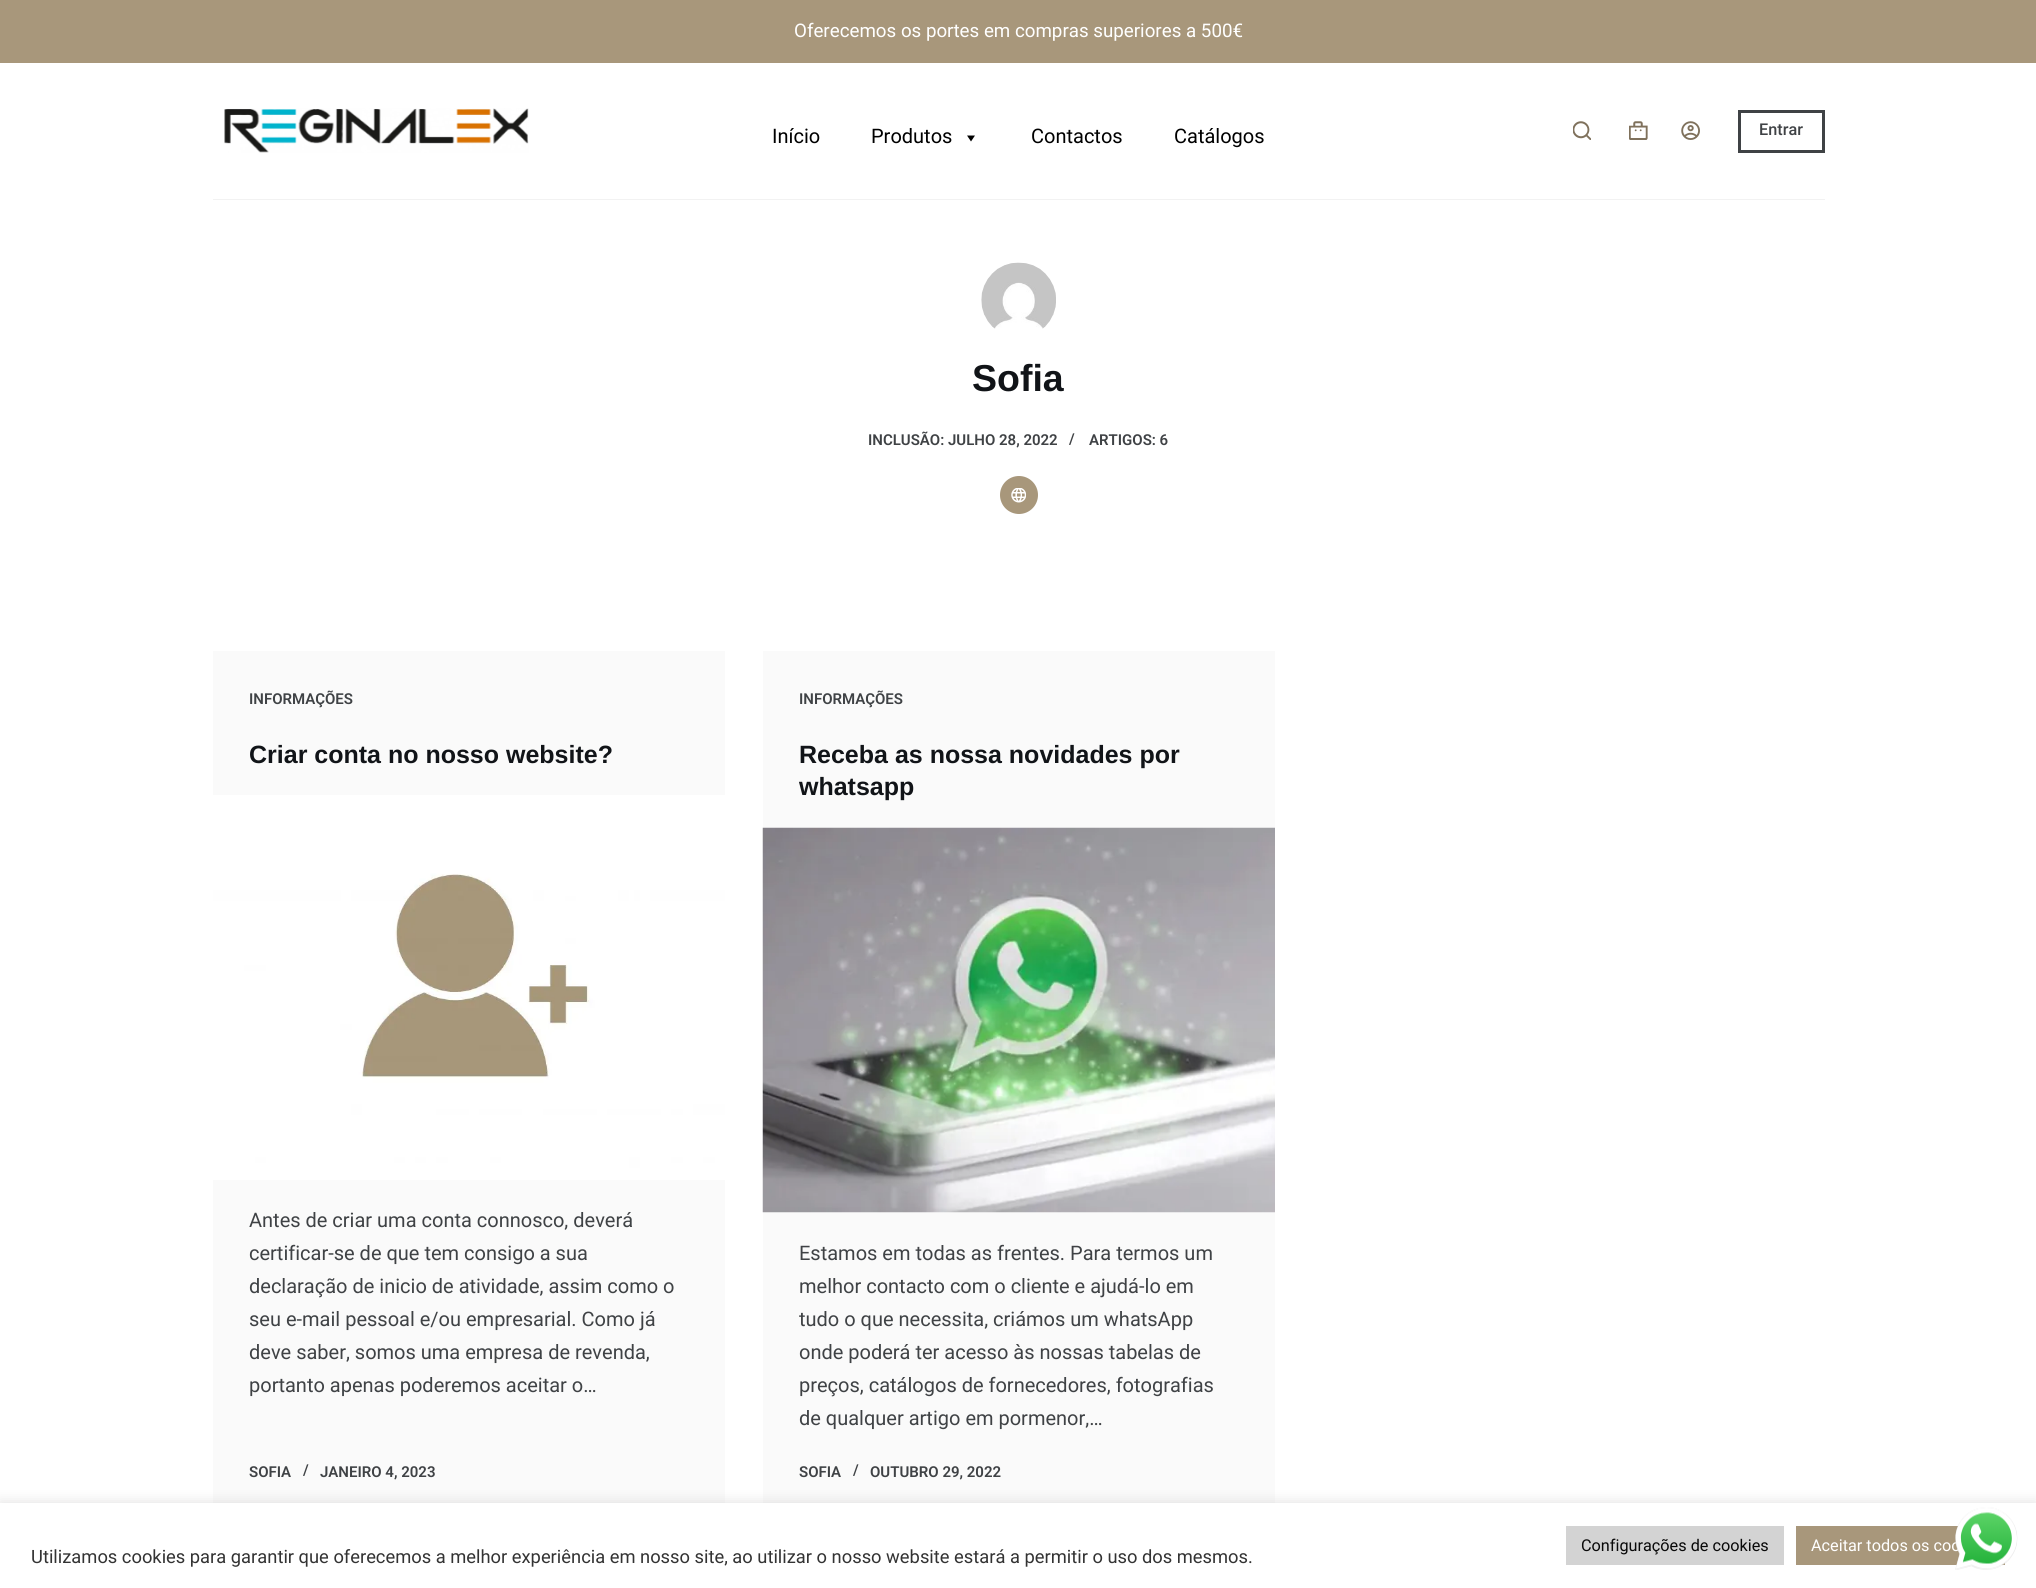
#include <cairo.h>
#include <math.h>
#include <stddef.h>


static void round_rect(cairo_t *cr, double x, double y, double w, double h, double r) {
    cairo_new_sub_path(cr);
    cairo_arc(cr, x + w - r, y + h - r, r, 0, M_PI / 2);
    cairo_arc(cr, x + r, y + h - r, r, M_PI / 2, M_PI);
    cairo_arc(cr, x + r, y + r, r, M_PI, 1.5 * M_PI);
    cairo_arc(cr, x + w - r, y + r, r, 1.5 * M_PI, 2 * M_PI);
    cairo_close_path(cr);
}

static void shadow(cairo_t *cr, double x, double y, double w, double h, double r, double blur, double alpha) {
    cairo_push_group_with_content(cr, CAIRO_CONTENT_ALPHA);
    cairo_set_operator(cr, CAIRO_OPERATOR_SOURCE);
    for (int i = 15; i >= -15 && fmin(w, h) + blur * i / 3 > 0; i -= 2) {
        double e = blur * i / 6;
        cairo_set_source_rgba(cr, 0, 0, 0, alpha * erfc((i - 1) / 8.5) / 2);
        round_rect(cr, x - e, y - e, w + 2 * e, h + 2 * e, fmax(0, fmin(r + e + blur * .6, fmin(w, h) / 2 + e)));
        cairo_fill(cr);
    }
    cairo_pattern_t *soft = cairo_pop_group(cr);
    cairo_mask(cr, soft);
    cairo_pattern_destroy(soft);
}

static void picture(cairo_t *cr, const char *path, double x, double y, double w, double h) {
    cairo_surface_t *image = cairo_image_surface_create_from_png(path);
    cairo_save(cr);
    cairo_set_source_surface(cr, image, x, y);
    cairo_rectangle(cr, x, y, w, h);
    cairo_fill(cr);
    cairo_restore(cr);
    cairo_surface_destroy(image);
}

int main(void) {
    cairo_surface_t *surface = cairo_image_surface_create(CAIRO_FORMAT_RGB24, 2036, 1588);
    cairo_t *cr = cairo_create(surface);
    cairo_font_options_t *options = cairo_font_options_create();
    cairo_font_options_set_hint_metrics(options, CAIRO_HINT_METRICS_OFF);
    cairo_font_options_set_hint_style(options, CAIRO_HINT_STYLE_NONE);
    cairo_set_font_options(cr, options);
    cairo_set_miter_limit(cr, 4);
    cairo_set_source_rgb(cr, 1, 1, 1);
    cairo_paint(cr);
    cairo_set_source_rgb(cr, 0.659, 0.592, 0.482);
    cairo_rectangle(cr, 0, 0, 2036, 63);
    cairo_fill(cr);
    cairo_select_font_face(cr, "Roboto", CAIRO_FONT_SLANT_NORMAL, CAIRO_FONT_WEIGHT_NORMAL);
    cairo_set_font_size(cr, 18.75);
    cairo_set_source_rgb(cr, 1, 1, 1);
    cairo_move_to(cr, 794, 37);
    cairo_show_text(cr, "Oferecemos os portes em compras superiores a 500€");
    cairo_set_source_rgb(cr, 0.949, 0.949, 0.949);
    cairo_rectangle(cr, 213, 199, 1612, 1);
    cairo_fill(cr);
    picture(cr, "img1.png", 224, 108, 305, 45);
    cairo_set_font_size(cr, 20);
    cairo_set_source_rgb(cr, 0, 0, 0);
    cairo_move_to(cr, 772, 143);
    cairo_show_text(cr, "Início");
    cairo_move_to(cr, 871, 143);
    cairo_show_text(cr, "Produtos");
    cairo_new_path(cr);
    cairo_move_to(cr, 975, 135.5);
    cairo_line_to(cr, 971, 141.5);
    cairo_line_to(cr, 967, 135.5);
    cairo_close_path(cr);
    cairo_fill(cr);
    cairo_move_to(cr, 1031, 143);
    cairo_show_text(cr, "Contactos");
    cairo_move_to(cr, 1174, 143);
    cairo_show_text(cr, "Catálogos");
    picture(cr, "img2.png", 1573, 121, 18, 19);
    picture(cr, "img3.png", 1629, 121, 19, 19);
    picture(cr, "img4.png", 1681, 121, 19, 19);
    cairo_rectangle(cr, 1739.5, 111.5, 84, 40);
    cairo_set_source_rgb(cr, 0.247, 0.259, 0.271);
    cairo_set_line_width(cr, 3);
    cairo_stroke(cr);
    cairo_select_font_face(cr, "Roboto Medium", CAIRO_FONT_SLANT_NORMAL, CAIRO_FONT_WEIGHT_NORMAL);
    cairo_set_font_size(cr, 16.25);
    cairo_move_to(cr, 1759, 135);
    cairo_show_text(cr, "Entrar");
    picture(cr, "img5.png", 981, 262, 75, 67);
    cairo_select_font_face(cr, "Liberation Sans", CAIRO_FONT_SLANT_NORMAL, CAIRO_FONT_WEIGHT_BOLD);
    cairo_set_font_size(cr, 37.5);
    cairo_set_source_rgb(cr, 0.067, 0.082, 0.094);
    cairo_move_to(cr, 972, 391);
    cairo_show_text(cr, "Sofia");
    cairo_select_font_face(cr, "Roboto SemiBold", CAIRO_FONT_SLANT_NORMAL, CAIRO_FONT_WEIGHT_NORMAL);
    cairo_set_font_size(cr, 15);
    cairo_set_source_rgb(cr, 0.247, 0.259, 0.271);
    cairo_move_to(cr, 868, 445);
    cairo_show_text(cr, "INCLUSÃO: JULHO 28, 2022");
    cairo_move_to(cr, 1069, 444);
    cairo_show_text(cr, "/");
    cairo_move_to(cr, 1089, 445);
    cairo_show_text(cr, "ARTIGOS: 6");
    cairo_set_source_rgb(cr, 0.659, 0.592, 0.482);
    cairo_new_path(cr);
    cairo_arc(cr, 1019, 495, 19, 0, 2 * M_PI);
    cairo_fill(cr);
    picture(cr, "img6.png", 1011, 488, 15, 15);
    cairo_set_source_rgb(cr, 0.98, 0.98, 0.98);
    cairo_rectangle(cr, 213, 651, 512, 852);
    cairo_fill(cr);
    cairo_set_source_rgb(cr, 0.247, 0.259, 0.271);
    cairo_move_to(cr, 249, 704);
    cairo_show_text(cr, "INFORMAÇÕES");
    cairo_select_font_face(cr, "Liberation Sans", CAIRO_FONT_SLANT_NORMAL, CAIRO_FONT_WEIGHT_BOLD);
    cairo_set_font_size(cr, 25);
    cairo_set_source_rgb(cr, 0.067, 0.082, 0.094);
    cairo_move_to(cr, 249, 763);
    cairo_show_text(cr, "Criar conta no nosso website?");
    picture(cr, "img7.png", 213, 795, 512, 385);
    cairo_select_font_face(cr, "Roboto", CAIRO_FONT_SLANT_NORMAL, CAIRO_FONT_WEIGHT_NORMAL);
    cairo_set_font_size(cr, 20);
    cairo_set_source_rgb(cr, 0.247, 0.259, 0.271);
    cairo_move_to(cr, 249, 1227);
    cairo_show_text(cr, "Antes de criar uma conta connosco, deverá");
    cairo_move_to(cr, 249, 1260);
    cairo_show_text(cr, "certificar-se de que tem consigo a sua");
    cairo_move_to(cr, 249, 1293);
    cairo_show_text(cr, "declaração de inicio de atividade, assim como o");
    cairo_move_to(cr, 249, 1326);
    cairo_show_text(cr, "seu e-mail pessoal e/ou empresarial. Como já");
    cairo_move_to(cr, 249, 1359);
    cairo_show_text(cr, "deve saber, somos uma empresa de revenda,");
    cairo_move_to(cr, 249, 1392);
    cairo_show_text(cr, "portanto apenas poderemos aceitar o…");
    cairo_select_font_face(cr, "Roboto SemiBold", CAIRO_FONT_SLANT_NORMAL, CAIRO_FONT_WEIGHT_NORMAL);
    cairo_set_font_size(cr, 15);
    cairo_move_to(cr, 249, 1477);
    cairo_show_text(cr, "SOFIA");
    cairo_move_to(cr, 303, 1475);
    cairo_show_text(cr, "/");
    cairo_move_to(cr, 320, 1477);
    cairo_show_text(cr, "JANEIRO 4, 2023");
    cairo_set_source_rgb(cr, 0.98, 0.98, 0.98);
    cairo_rectangle(cr, 763, 651, 512, 852);
    cairo_fill(cr);
    cairo_set_source_rgb(cr, 0.247, 0.259, 0.271);
    cairo_move_to(cr, 799, 704);
    cairo_show_text(cr, "INFORMAÇÕES");
    cairo_select_font_face(cr, "Liberation Sans", CAIRO_FONT_SLANT_NORMAL, CAIRO_FONT_WEIGHT_BOLD);
    cairo_set_font_size(cr, 25);
    cairo_set_source_rgb(cr, 0.067, 0.082, 0.094);
    cairo_move_to(cr, 799, 763);
    cairo_show_text(cr, "Receba as nossa novidades por");
    cairo_move_to(cr, 799, 795);
    cairo_show_text(cr, "whatsapp");
    picture(cr, "img8.png", 762, 827, 513, 386);
    cairo_select_font_face(cr, "Roboto", CAIRO_FONT_SLANT_NORMAL, CAIRO_FONT_WEIGHT_NORMAL);
    cairo_set_font_size(cr, 20);
    cairo_set_source_rgb(cr, 0.247, 0.259, 0.271);
    cairo_move_to(cr, 799, 1260);
    cairo_show_text(cr, "Estamos em todas as frentes. Para termos um");
    cairo_move_to(cr, 799, 1293);
    cairo_show_text(cr, "melhor contacto com o cliente e ajudá-lo em");
    cairo_move_to(cr, 799, 1326);
    cairo_show_text(cr, "tudo o que necessita, criámos um whatsApp");
    cairo_move_to(cr, 799, 1359);
    cairo_show_text(cr, "onde poderá ter acesso às nossas tabelas de");
    cairo_move_to(cr, 799, 1392);
    cairo_show_text(cr, "preços, catálogos de fornecedores, fotografias");
    cairo_move_to(cr, 799, 1425);
    cairo_show_text(cr, "de qualquer artigo em pormenor,…");
    cairo_select_font_face(cr, "Roboto SemiBold", CAIRO_FONT_SLANT_NORMAL, CAIRO_FONT_WEIGHT_NORMAL);
    cairo_set_font_size(cr, 15);
    cairo_move_to(cr, 799, 1477);
    cairo_show_text(cr, "SOFIA");
    cairo_move_to(cr, 853, 1475);
    cairo_show_text(cr, "/");
    cairo_move_to(cr, 870, 1477);
    cairo_show_text(cr, "OUTUBRO 29, 2022");
    cairo_set_source_rgb(cr, 0.675, 0.671, 0.671);
    shadow(cr, 0, 1501, 2036, 87, 0, 6, 0.3);
    cairo_set_source_rgb(cr, 1, 1, 1);
    cairo_rectangle(cr, 0, 1503, 2036, 85);
    cairo_fill(cr);
    cairo_set_source_rgb(cr, 0.827, 0.827, 0.827);
    cairo_rectangle(cr, 1566, 1526, 218, 39);
    cairo_fill(cr);
    cairo_select_font_face(cr, "Roboto", CAIRO_FONT_SLANT_NORMAL, CAIRO_FONT_WEIGHT_NORMAL);
    cairo_set_font_size(cr, 16.25);
    cairo_set_source_rgb(cr, 0.039, 0.039, 0.039);
    cairo_move_to(cr, 1581, 1551);
    cairo_show_text(cr, "Configurações de cookies");
    cairo_set_source_rgb(cr, 0.659, 0.592, 0.482);
    cairo_rectangle(cr, 1796, 1526, 209, 39);
    cairo_fill(cr);
    cairo_set_source_rgb(cr, 1, 1, 1);
    cairo_move_to(cr, 1811, 1551);
    cairo_show_text(cr, "Aceitar todos os coo");
    cairo_set_font_size(cr, 18.33);
    cairo_set_source_rgb(cr, 0.2, 0.2, 0.2);
    cairo_move_to(cr, 31, 1563);
    cairo_show_text(cr, "Utilizamos cookies para garantir que oferecemos a melhor experiência em nosso site, ao utilizar o nosso website estará a permitir o uso dos mesmos.");
    picture(cr, "img9.png", 1955, 1507, 63, 63);
    cairo_surface_write_to_png(surface, "page.png");
    cairo_font_options_destroy(options);
    cairo_destroy(cr);
    cairo_surface_destroy(surface);
    return 0;
}
